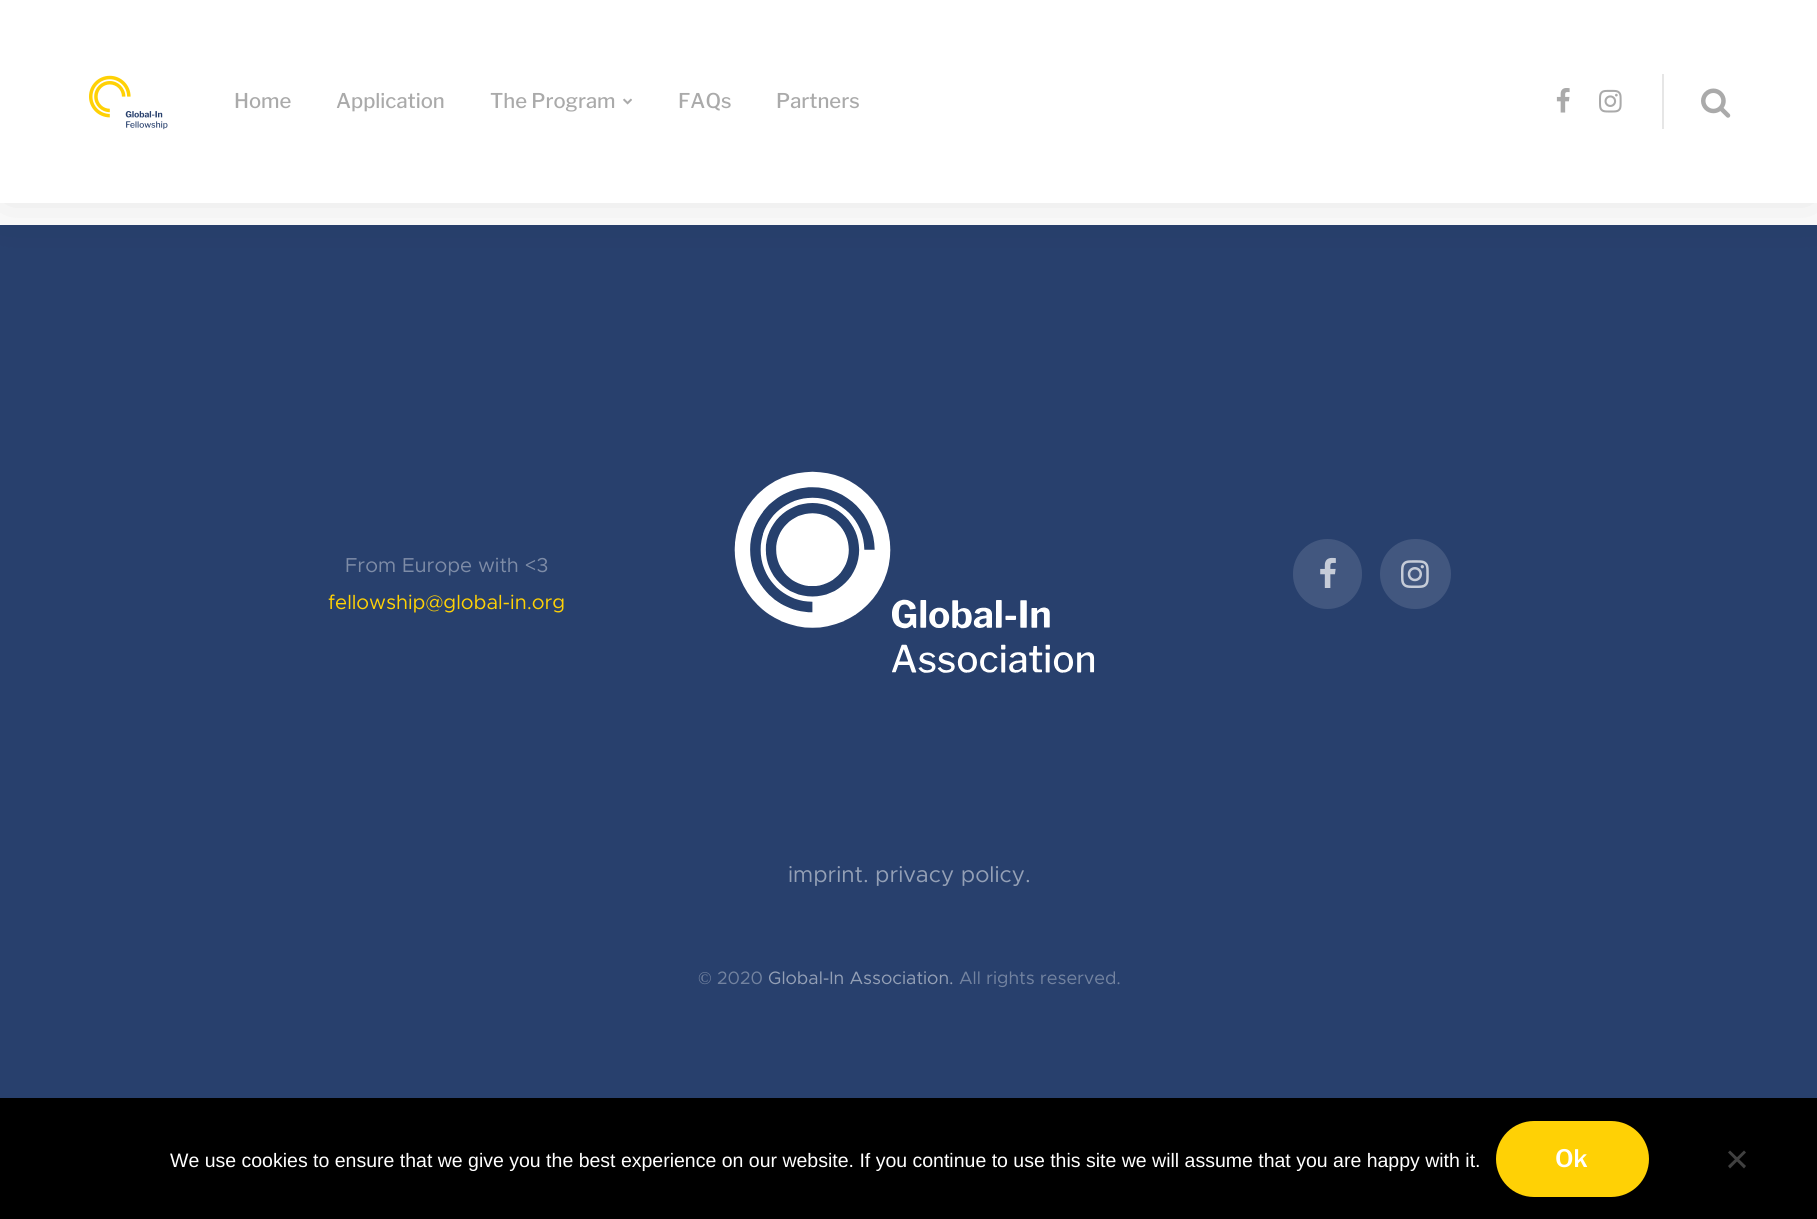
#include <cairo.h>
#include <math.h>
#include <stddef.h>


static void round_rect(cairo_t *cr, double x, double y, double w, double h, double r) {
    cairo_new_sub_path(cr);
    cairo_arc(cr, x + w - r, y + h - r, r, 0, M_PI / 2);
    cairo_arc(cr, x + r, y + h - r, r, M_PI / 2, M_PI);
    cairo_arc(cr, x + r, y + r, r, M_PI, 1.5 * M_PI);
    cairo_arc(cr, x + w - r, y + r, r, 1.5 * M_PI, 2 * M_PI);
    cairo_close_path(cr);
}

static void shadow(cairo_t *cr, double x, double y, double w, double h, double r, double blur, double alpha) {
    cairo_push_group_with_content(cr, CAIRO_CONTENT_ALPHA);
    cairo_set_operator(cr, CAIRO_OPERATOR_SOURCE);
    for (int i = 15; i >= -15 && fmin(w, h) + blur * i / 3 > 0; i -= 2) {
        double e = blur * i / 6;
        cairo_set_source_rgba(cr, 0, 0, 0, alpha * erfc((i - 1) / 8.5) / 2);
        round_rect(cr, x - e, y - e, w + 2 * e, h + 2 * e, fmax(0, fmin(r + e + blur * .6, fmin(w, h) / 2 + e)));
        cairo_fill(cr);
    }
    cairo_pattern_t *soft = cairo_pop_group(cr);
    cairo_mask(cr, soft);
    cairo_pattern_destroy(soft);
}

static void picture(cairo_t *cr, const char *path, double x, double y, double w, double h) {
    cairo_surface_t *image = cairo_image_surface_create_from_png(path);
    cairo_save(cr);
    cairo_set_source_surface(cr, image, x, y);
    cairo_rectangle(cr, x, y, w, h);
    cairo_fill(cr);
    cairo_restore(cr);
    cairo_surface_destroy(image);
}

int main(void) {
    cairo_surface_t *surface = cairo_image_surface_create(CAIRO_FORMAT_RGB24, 1817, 1219);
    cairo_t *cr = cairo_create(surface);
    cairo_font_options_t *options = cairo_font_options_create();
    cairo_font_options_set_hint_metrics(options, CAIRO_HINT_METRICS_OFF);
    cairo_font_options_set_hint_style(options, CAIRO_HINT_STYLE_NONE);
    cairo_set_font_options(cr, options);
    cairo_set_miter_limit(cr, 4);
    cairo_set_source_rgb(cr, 1, 1, 1);
    cairo_paint(cr);
    cairo_set_source_rgb(cr, 0.157, 0.251, 0.427);
    cairo_rectangle(cr, 0, 225, 1817, 873);
    cairo_fill(cr);
    cairo_set_source_rgb(cr, 0, 0, 0);
    shadow(cr, 0, 0, 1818, 203, 0, 30, 0.11);
    cairo_set_source_rgb(cr, 1, 1, 1);
    cairo_rectangle(cr, 0, 0, 1817, 203);
    cairo_fill(cr);
    picture(cr, "img1.png", 89, 75, 79, 55);
    cairo_select_font_face(cr, "Libre Franklin Medium", CAIRO_FONT_SLANT_NORMAL, CAIRO_FONT_WEIGHT_NORMAL);
    cairo_set_font_size(cr, 20.25);
    cairo_set_source_rgb(cr, 0.667, 0.667, 0.667);
    cairo_move_to(cr, 234, 108);
    cairo_show_text(cr, "Home");
    cairo_move_to(cr, 336, 108);
    cairo_show_text(cr, "Application");
    cairo_move_to(cr, 490, 108);
    cairo_show_text(cr, "The Program");
    picture(cr, "img2.png", 623, 98, 9, 7);
    cairo_move_to(cr, 678, 108);
    cairo_show_text(cr, "FAQs");
    cairo_move_to(cr, 776, 108);
    cairo_show_text(cr, "Partners");
    picture(cr, "img3.png", 1556, 88, 14, 25);
    picture(cr, "img4.png", 1599, 89, 23, 24);
    cairo_set_source_rgb(cr, 0.902, 0.902, 0.902);
    cairo_rectangle(cr, 1662, 74, 2, 55);
    cairo_fill(cr);
    picture(cr, "img5.png", 1701, 88, 30, 30);
    cairo_select_font_face(cr, "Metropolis", CAIRO_FONT_SLANT_NORMAL, CAIRO_FONT_WEIGHT_NORMAL);
    cairo_set_source_rgb(cr, 0.494, 0.549, 0.655);
    cairo_move_to(cr, 345, 572);
    cairo_show_text(cr, "From Europe with <3");
    cairo_set_source_rgb(cr, 1, 0.82, 0.02);
    cairo_move_to(cr, 328, 609);
    cairo_show_text(cr, "fellowship@global-in.org");
    picture(cr, "img6.png", 734, 471, 361, 202);
    cairo_set_source_rgb(cr, 0.259, 0.341, 0.498);
    round_rect(cr, 1293, 539, 69, 70, 34.5);
    cairo_fill(cr);
    picture(cr, "img7.png", 1320, 557, 16, 31);
    round_rect(cr, 1380, 539, 71, 70, 35);
    cairo_fill(cr);
    picture(cr, "img8.png", 1401, 560, 28, 28);
    cairo_set_font_size(cr, 22.5);
    cairo_set_source_rgb(cr, 0.58, 0.627, 0.714);
    cairo_move_to(cr, 788, 882);
    cairo_show_text(cr, "imprint. privacy policy.");
    cairo_select_font_face(cr, "Liberation Serif", CAIRO_FONT_SLANT_NORMAL, CAIRO_FONT_WEIGHT_NORMAL);
    cairo_set_font_size(cr, 18);
    cairo_set_source_rgb(cr, 0.451, 0.514, 0.627);
    cairo_move_to(cr, 698, 984);
    cairo_show_text(cr, "©");
    cairo_select_font_face(cr, "Metropolis", CAIRO_FONT_SLANT_NORMAL, CAIRO_FONT_WEIGHT_NORMAL);
    cairo_move_to(cr, 717, 984);
    cairo_show_text(cr, "2020");
    cairo_set_source_rgb(cr, 0.58, 0.627, 0.714);
    cairo_move_to(cr, 768, 984);
    cairo_show_text(cr, "Global-In Association.");
    cairo_set_source_rgb(cr, 0.451, 0.514, 0.627);
    cairo_move_to(cr, 959, 984);
    cairo_show_text(cr, "All rights reserved.");
    cairo_set_source_rgb(cr, 0, 0, 0);
    cairo_rectangle(cr, 0, 1098, 1817, 121);
    cairo_fill(cr);
    cairo_select_font_face(cr, "Liberation Sans", CAIRO_FONT_SLANT_NORMAL, CAIRO_FONT_WEIGHT_NORMAL);
    cairo_set_font_size(cr, 19.5);
    cairo_set_source_rgb(cr, 1, 1, 1);
    cairo_move_to(cr, 170, 1167);
    cairo_show_text(cr, "We use cookies to ensure that we give you the best experience on our website. If you continue to use this site we will assume that you are happy with it.");
    cairo_set_source_rgb(cr, 1, 0.82, 0.02);
    round_rect(cr, 1496, 1121, 153, 76, 38);
    cairo_fill(cr);
    cairo_select_font_face(cr, "Libre Franklin SemiBold", CAIRO_FONT_SLANT_NORMAL, CAIRO_FONT_WEIGHT_NORMAL);
    cairo_set_font_size(cr, 24);
    cairo_set_source_rgb(cr, 1, 1, 1);
    cairo_move_to(cr, 1555, 1167);
    cairo_show_text(cr, "Ok");
    cairo_set_source_rgb(cr, 0.251, 0.251, 0.251);
    cairo_new_path(cr);
    cairo_move_to(cr, 1744, 1150.5);
    cairo_line_to(cr, 1746, 1152.5);
    cairo_line_to(cr, 1730, 1168.5);
    cairo_line_to(cr, 1728, 1166);
    cairo_close_path(cr);
    cairo_fill(cr);
    cairo_new_path(cr);
    cairo_move_to(cr, 1728, 1152.5);
    cairo_line_to(cr, 1730, 1150.5);
    cairo_line_to(cr, 1746, 1166);
    cairo_line_to(cr, 1744, 1168.5);
    cairo_close_path(cr);
    cairo_fill(cr);
    cairo_surface_write_to_png(surface, "page.png");
    cairo_font_options_destroy(options);
    cairo_destroy(cr);
    cairo_surface_destroy(surface);
    return 0;
}
